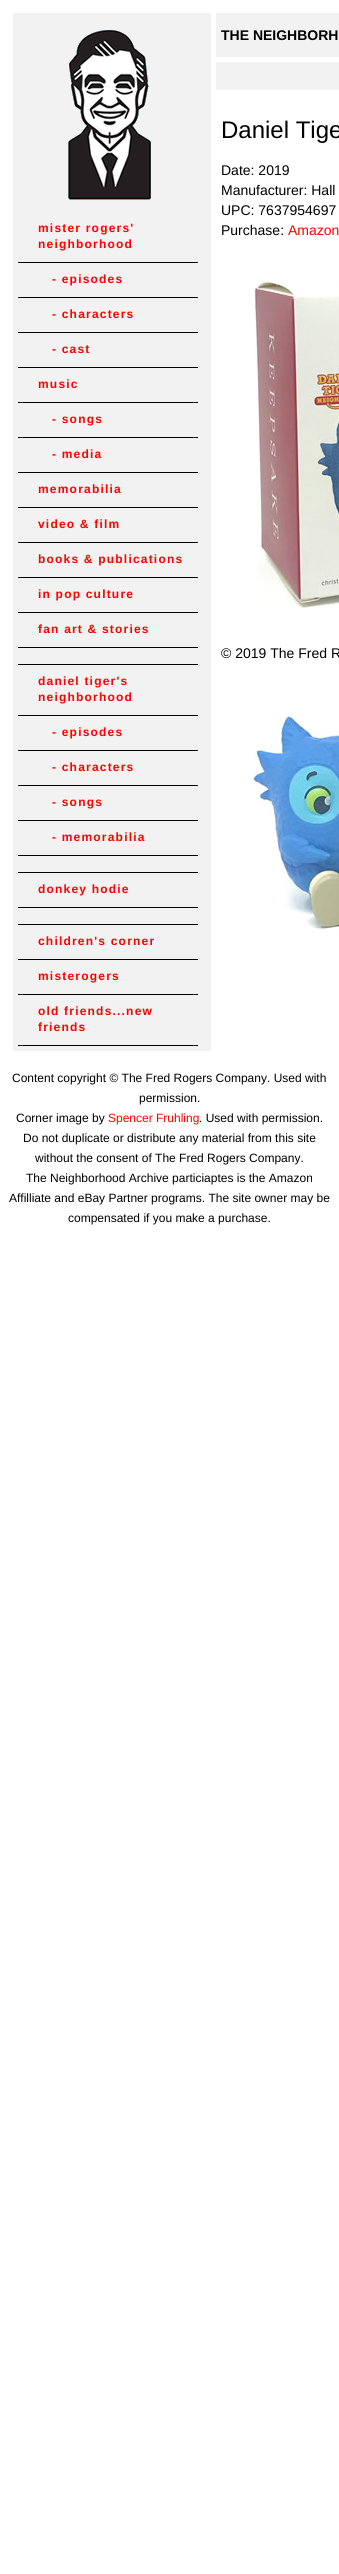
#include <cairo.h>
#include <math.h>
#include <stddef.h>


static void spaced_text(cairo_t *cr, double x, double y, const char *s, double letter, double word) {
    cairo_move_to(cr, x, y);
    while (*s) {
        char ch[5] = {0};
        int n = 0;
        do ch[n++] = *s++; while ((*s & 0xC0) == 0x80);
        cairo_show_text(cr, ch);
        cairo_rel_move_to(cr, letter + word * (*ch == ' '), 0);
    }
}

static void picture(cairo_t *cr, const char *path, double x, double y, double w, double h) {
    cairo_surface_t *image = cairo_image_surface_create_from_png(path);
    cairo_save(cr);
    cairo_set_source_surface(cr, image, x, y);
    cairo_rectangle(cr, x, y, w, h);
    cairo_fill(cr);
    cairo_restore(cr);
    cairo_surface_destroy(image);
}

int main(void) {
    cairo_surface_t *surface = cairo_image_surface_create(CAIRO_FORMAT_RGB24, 339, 2574);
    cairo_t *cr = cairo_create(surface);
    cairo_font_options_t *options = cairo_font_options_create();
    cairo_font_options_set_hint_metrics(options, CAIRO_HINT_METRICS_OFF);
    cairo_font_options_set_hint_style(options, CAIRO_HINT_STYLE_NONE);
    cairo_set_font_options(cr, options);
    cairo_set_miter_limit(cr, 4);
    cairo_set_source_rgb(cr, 1, 1, 1);
    cairo_paint(cr);
    cairo_set_source_rgb(cr, 0.949, 0.949, 0.949);
    cairo_rectangle(cr, 216, 13, 123, 44);
    cairo_fill(cr);
    cairo_select_font_face(cr, "Liberation Sans", CAIRO_FONT_SLANT_NORMAL, CAIRO_FONT_WEIGHT_BOLD);
    cairo_set_font_size(cr, 14);
    cairo_set_source_rgb(cr, 0, 0, 0);
    cairo_move_to(cr, 221, 40);
    cairo_show_text(cr, "THE NEIGHBORH");
    cairo_set_source_rgb(cr, 0.949, 0.949, 0.949);
    cairo_rectangle(cr, 13, 13, 198, 1038);
    cairo_fill(cr);
    picture(cr, "img1.png", 68, 30, 83, 170);
    cairo_set_source_rgb(cr, 0, 0, 0);
    cairo_rectangle(cr, 18, 262, 180, 1);
    cairo_fill(cr);
    cairo_set_font_size(cr, 12);
    cairo_set_source_rgb(cr, 1, 0, 0);
    spaced_text(cr, 38, 232, "mister rogers'", 1.2, 0);
    spaced_text(cr, 38, 248, "neighborhood", 1.2, 0);
    cairo_set_source_rgb(cr, 0, 0, 0);
    cairo_rectangle(cr, 18, 297, 180, 1);
    cairo_fill(cr);
    cairo_set_source_rgb(cr, 1, 0, 0);
    spaced_text(cr, 52, 283, "- episodes", 1.2, 0);
    cairo_set_source_rgb(cr, 0, 0, 0);
    cairo_rectangle(cr, 18, 332, 180, 1);
    cairo_fill(cr);
    cairo_set_source_rgb(cr, 1, 0, 0);
    spaced_text(cr, 52, 318, "- characters", 1.2, 0);
    cairo_set_source_rgb(cr, 0, 0, 0);
    cairo_rectangle(cr, 18, 367, 180, 1);
    cairo_fill(cr);
    cairo_set_source_rgb(cr, 1, 0, 0);
    spaced_text(cr, 52, 353, "- cast", 1.2, 0);
    cairo_set_source_rgb(cr, 0, 0, 0);
    cairo_rectangle(cr, 18, 402, 180, 1);
    cairo_fill(cr);
    cairo_set_source_rgb(cr, 1, 0, 0);
    spaced_text(cr, 38, 388, "music", 1.2, 0);
    cairo_set_source_rgb(cr, 0, 0, 0);
    cairo_rectangle(cr, 18, 437, 180, 1);
    cairo_fill(cr);
    cairo_set_source_rgb(cr, 1, 0, 0);
    spaced_text(cr, 52, 423, "- songs", 1.2, 0);
    cairo_set_source_rgb(cr, 0, 0, 0);
    cairo_rectangle(cr, 18, 472, 180, 1);
    cairo_fill(cr);
    cairo_set_source_rgb(cr, 1, 0, 0);
    spaced_text(cr, 52, 458, "- media", 1.2, 0);
    cairo_set_source_rgb(cr, 0, 0, 0);
    cairo_rectangle(cr, 18, 507, 180, 1);
    cairo_fill(cr);
    cairo_set_source_rgb(cr, 1, 0, 0);
    spaced_text(cr, 38, 493, "memorabilia", 1.2, 0);
    cairo_set_source_rgb(cr, 0, 0, 0);
    cairo_rectangle(cr, 18, 542, 180, 1);
    cairo_fill(cr);
    cairo_set_source_rgb(cr, 1, 0, 0);
    spaced_text(cr, 38, 528, "video & film", 1.2, 0);
    cairo_set_source_rgb(cr, 0, 0, 0);
    cairo_rectangle(cr, 18, 577, 180, 1);
    cairo_fill(cr);
    cairo_set_source_rgb(cr, 1, 0, 0);
    spaced_text(cr, 38, 563, "books & publications", 1.2, 0);
    cairo_set_source_rgb(cr, 0, 0, 0);
    cairo_rectangle(cr, 18, 612, 180, 1);
    cairo_fill(cr);
    cairo_set_source_rgb(cr, 1, 0, 0);
    spaced_text(cr, 38, 598, "in pop culture", 1.2, 0);
    cairo_set_source_rgb(cr, 0, 0, 0);
    cairo_rectangle(cr, 18, 647, 180, 1);
    cairo_fill(cr);
    cairo_set_source_rgb(cr, 1, 0, 0);
    spaced_text(cr, 38, 633, "fan art & stories", 1.2, 0);
    cairo_set_source_rgb(cr, 0, 0, 0);
    cairo_rectangle(cr, 18, 664, 180, 1);
    cairo_fill(cr);
    cairo_rectangle(cr, 18, 715, 180, 1);
    cairo_fill(cr);
    cairo_set_source_rgb(cr, 1, 0, 0);
    spaced_text(cr, 38, 685, "daniel tiger's", 1.2, 0);
    spaced_text(cr, 38, 701, "neighborhood", 1.2, 0);
    cairo_set_source_rgb(cr, 0, 0, 0);
    cairo_rectangle(cr, 18, 750, 180, 1);
    cairo_fill(cr);
    cairo_set_source_rgb(cr, 1, 0, 0);
    spaced_text(cr, 52, 736, "- episodes", 1.2, 0);
    cairo_set_source_rgb(cr, 0, 0, 0);
    cairo_rectangle(cr, 18, 785, 180, 1);
    cairo_fill(cr);
    cairo_set_source_rgb(cr, 1, 0, 0);
    spaced_text(cr, 52, 771, "- characters", 1.2, 0);
    cairo_set_source_rgb(cr, 0, 0, 0);
    cairo_rectangle(cr, 18, 820, 180, 1);
    cairo_fill(cr);
    cairo_set_source_rgb(cr, 1, 0, 0);
    spaced_text(cr, 52, 806, "- songs", 1.2, 0);
    cairo_set_source_rgb(cr, 0, 0, 0);
    cairo_rectangle(cr, 18, 855, 180, 1);
    cairo_fill(cr);
    cairo_set_source_rgb(cr, 1, 0, 0);
    spaced_text(cr, 52, 841, "- memorabilia", 1.2, 0);
    cairo_set_source_rgb(cr, 0, 0, 0);
    cairo_rectangle(cr, 18, 872, 180, 1);
    cairo_fill(cr);
    cairo_rectangle(cr, 18, 907, 180, 1);
    cairo_fill(cr);
    cairo_set_source_rgb(cr, 1, 0, 0);
    spaced_text(cr, 38, 893, "donkey hodie", 1.2, 0);
    cairo_set_source_rgb(cr, 0, 0, 0);
    cairo_rectangle(cr, 18, 924, 180, 1);
    cairo_fill(cr);
    cairo_rectangle(cr, 18, 959, 180, 1);
    cairo_fill(cr);
    cairo_set_source_rgb(cr, 1, 0, 0);
    spaced_text(cr, 38, 945, "children's corner", 1.2, 0);
    cairo_set_source_rgb(cr, 0, 0, 0);
    cairo_rectangle(cr, 18, 994, 180, 1);
    cairo_fill(cr);
    cairo_set_source_rgb(cr, 1, 0, 0);
    spaced_text(cr, 38, 980, "misterogers", 1.2, 0);
    cairo_set_source_rgb(cr, 0, 0, 0);
    cairo_rectangle(cr, 18, 1045, 180, 1);
    cairo_fill(cr);
    cairo_set_source_rgb(cr, 1, 0, 0);
    spaced_text(cr, 38, 1015, "old friends...new", 1.2, 0);
    spaced_text(cr, 38, 1031, "friends", 1.2, 0);
    cairo_set_source_rgb(cr, 0.949, 0.949, 0.949);
    cairo_rectangle(cr, 216, 62, 123, 28);
    cairo_fill(cr);
    cairo_select_font_face(cr, "Liberation Sans", CAIRO_FONT_SLANT_NORMAL, CAIRO_FONT_WEIGHT_NORMAL);
    cairo_set_font_size(cr, 24);
    cairo_set_source_rgb(cr, 0, 0, 0);
    cairo_move_to(cr, 221, 138);
    cairo_show_text(cr, "Daniel Tige");
    cairo_set_font_size(cr, 14);
    cairo_move_to(cr, 221, 175);
    cairo_show_text(cr, "Date: 2019");
    cairo_move_to(cr, 221, 195);
    cairo_show_text(cr, "Manufacturer: Hall");
    cairo_move_to(cr, 221, 215);
    cairo_show_text(cr, "UPC: 7637954697");
    cairo_move_to(cr, 221, 235);
    cairo_show_text(cr, "Purchase:");
    cairo_set_source_rgb(cr, 1, 0, 0);
    cairo_move_to(cr, 288, 235);
    cairo_show_text(cr, "Amazon");
    picture(cr, "img2.png", 253, 279, 86, 331);
    cairo_set_source_rgb(cr, 0, 0, 0);
    cairo_move_to(cr, 221, 658);
    cairo_show_text(cr, "© 2019 The Fred R");
    picture(cr, "img3.png", 253, 711, 86, 221);
    cairo_set_font_size(cr, 12);
    cairo_move_to(cr, 12, 1082);
    cairo_show_text(cr, "Content copyright © The Fred Rogers Company. Used with");
    cairo_move_to(cr, 139, 1102);
    cairo_show_text(cr, "permission.");
    cairo_move_to(cr, 16, 1122);
    cairo_show_text(cr, "Corner image by");
    cairo_set_source_rgb(cr, 1, 0, 0);
    cairo_move_to(cr, 108, 1122);
    cairo_show_text(cr, "Spencer Fruhling");
    cairo_set_source_rgb(cr, 0, 0, 0);
    cairo_move_to(cr, 199, 1122);
    cairo_show_text(cr, ". Used with permission.");
    cairo_move_to(cr, 23, 1142);
    cairo_show_text(cr, "Do not duplicate or distribute any material from this site");
    cairo_move_to(cr, 35, 1162);
    cairo_show_text(cr, "without the consent of The Fred Rogers Company.");
    cairo_move_to(cr, 26, 1182);
    cairo_show_text(cr, "The Neighborhood Archive particiaptes is the Amazon");
    cairo_move_to(cr, 9, 1202);
    cairo_show_text(cr, "Affilliate and eBay Partner programs. The site owner may be");
    cairo_move_to(cr, 68, 1222);
    cairo_show_text(cr, "compensated if you make a purchase.");
    cairo_surface_write_to_png(surface, "page.png");
    cairo_font_options_destroy(options);
    cairo_destroy(cr);
    cairo_surface_destroy(surface);
    return 0;
}
